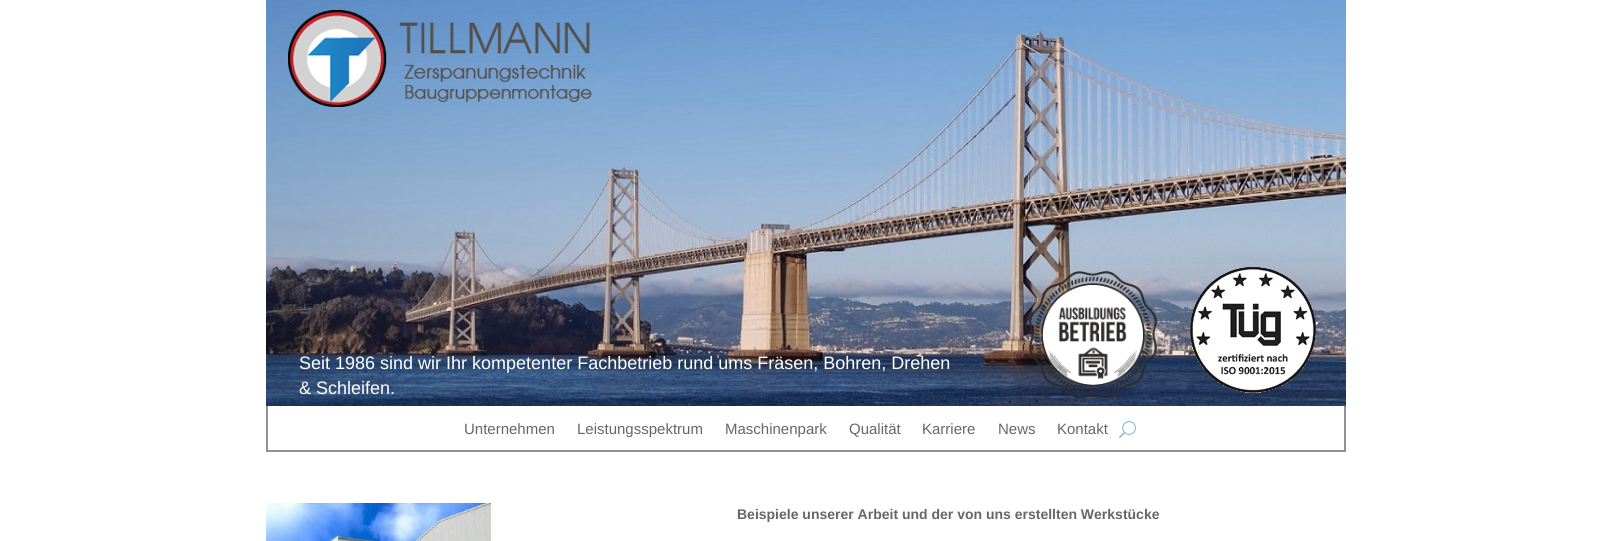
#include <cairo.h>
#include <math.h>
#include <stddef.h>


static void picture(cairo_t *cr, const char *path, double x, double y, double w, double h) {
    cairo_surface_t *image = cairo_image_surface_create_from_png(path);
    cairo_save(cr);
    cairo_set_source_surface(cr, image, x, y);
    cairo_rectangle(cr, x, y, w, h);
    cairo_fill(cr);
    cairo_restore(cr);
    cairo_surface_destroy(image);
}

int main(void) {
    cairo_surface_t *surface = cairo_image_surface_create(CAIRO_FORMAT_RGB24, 1611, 541);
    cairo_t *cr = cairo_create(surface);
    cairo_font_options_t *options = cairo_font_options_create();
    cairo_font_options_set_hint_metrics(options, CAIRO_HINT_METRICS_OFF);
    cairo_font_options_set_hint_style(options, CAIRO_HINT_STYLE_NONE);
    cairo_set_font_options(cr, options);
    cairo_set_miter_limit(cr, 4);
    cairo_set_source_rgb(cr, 1, 1, 1);
    cairo_paint(cr);
    picture(cr, "img1.png", 266, 0, 1080, 406);
    picture(cr, "img2.png", 288, 10, 304, 97);
    cairo_select_font_face(cr, "Liberation Sans", CAIRO_FONT_SLANT_NORMAL, CAIRO_FONT_WEIGHT_NORMAL);
    cairo_set_font_size(cr, 18);
    cairo_set_source_rgb(cr, 1, 1, 1);
    cairo_move_to(cr, 299, 369);
    cairo_show_text(cr, "Seit 1986 sind wir Ihr kompetenter Fachbetrieb rund ums Fräsen, Bohren, Drehen");
    cairo_move_to(cr, 299, 394);
    cairo_show_text(cr, "& Schleifen.");
    picture(cr, "img3.png", 1029, 271, 128, 127);
    picture(cr, "img4.png", 1190, 267, 128, 126);
    cairo_set_source_rgb(cr, 0.569, 0.569, 0.569);
    cairo_rectangle(cr, 1344, 406, 2, 46);
    cairo_fill(cr);
    cairo_rectangle(cr, 266, 450, 1080, 2);
    cairo_fill(cr);
    cairo_rectangle(cr, 266, 406, 2, 46);
    cairo_fill(cr);
    cairo_set_font_size(cr, 15);
    cairo_set_source_rgb(cr, 0.4, 0.4, 0.4);
    cairo_move_to(cr, 464, 434);
    cairo_show_text(cr, "Unternehmen");
    cairo_move_to(cr, 577, 434);
    cairo_show_text(cr, "Leistungsspektrum");
    cairo_move_to(cr, 725, 434);
    cairo_show_text(cr, "Maschinenpark");
    cairo_move_to(cr, 849, 434);
    cairo_show_text(cr, "Qualität");
    cairo_move_to(cr, 922, 434);
    cairo_show_text(cr, "Karriere");
    cairo_move_to(cr, 998, 434);
    cairo_show_text(cr, "News");
    cairo_move_to(cr, 1057, 434);
    cairo_show_text(cr, "Kontakt");
    picture(cr, "img5.png", 1119, 421, 17, 18);
    picture(cr, "img6.png", 266, 503, 225, 38);
    cairo_select_font_face(cr, "Liberation Sans", CAIRO_FONT_SLANT_NORMAL, CAIRO_FONT_WEIGHT_BOLD);
    cairo_set_font_size(cr, 14);
    cairo_move_to(cr, 737, 519);
    cairo_show_text(cr, "Beispiele unserer Arbeit und der von uns erstellten Werkstücke");
    cairo_surface_write_to_png(surface, "page.png");
    cairo_font_options_destroy(options);
    cairo_destroy(cr);
    cairo_surface_destroy(surface);
    return 0;
}
